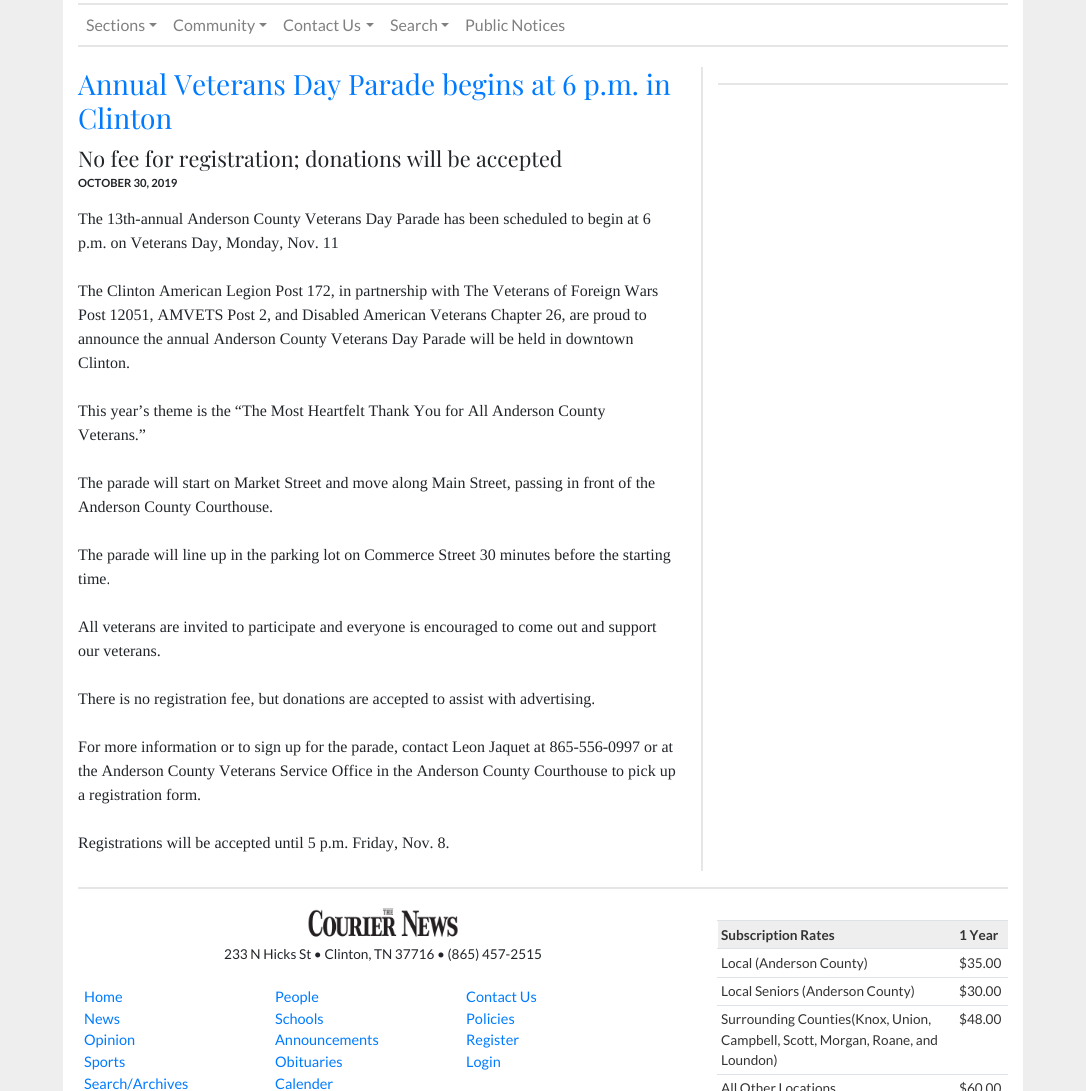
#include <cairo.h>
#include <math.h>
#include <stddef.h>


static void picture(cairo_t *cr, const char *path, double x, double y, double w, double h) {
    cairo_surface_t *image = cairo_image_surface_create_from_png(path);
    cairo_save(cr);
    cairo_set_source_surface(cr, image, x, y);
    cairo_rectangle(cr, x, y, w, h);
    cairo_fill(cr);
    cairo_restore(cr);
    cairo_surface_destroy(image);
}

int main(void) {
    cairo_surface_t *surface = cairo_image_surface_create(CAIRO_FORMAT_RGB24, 1086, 1091);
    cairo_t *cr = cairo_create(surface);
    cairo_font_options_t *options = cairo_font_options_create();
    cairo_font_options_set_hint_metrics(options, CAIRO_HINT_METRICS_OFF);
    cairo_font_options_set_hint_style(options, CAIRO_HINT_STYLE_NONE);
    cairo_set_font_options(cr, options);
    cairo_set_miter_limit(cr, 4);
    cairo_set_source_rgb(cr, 0.933, 0.933, 0.933);
    cairo_paint(cr);
    cairo_set_source_rgb(cr, 1, 1, 1);
    cairo_rectangle(cr, 63, 0, 960, 1091);
    cairo_fill(cr);
    cairo_set_source_rgb(cr, 0.902, 0.902, 0.902);
    cairo_rectangle(cr, 78, 3, 930, 2);
    cairo_fill(cr);
    cairo_rectangle(cr, 78, 45, 930, 2);
    cairo_fill(cr);
    cairo_select_font_face(cr, "Lato", CAIRO_FONT_SLANT_NORMAL, CAIRO_FONT_WEIGHT_NORMAL);
    cairo_set_font_size(cr, 16);
    cairo_set_source_rgb(cr, 0.502, 0.502, 0.502);
    cairo_move_to(cr, 86, 31);
    cairo_show_text(cr, "Sections");
    cairo_new_path(cr);
    cairo_move_to(cr, 149, 23);
    cairo_line_to(cr, 157, 23);
    cairo_line_to(cr, 153, 27);
    cairo_close_path(cr);
    cairo_fill(cr);
    cairo_move_to(cr, 173, 31);
    cairo_show_text(cr, "Community");
    cairo_new_path(cr);
    cairo_move_to(cr, 259, 23);
    cairo_line_to(cr, 267, 23);
    cairo_line_to(cr, 263, 27);
    cairo_close_path(cr);
    cairo_fill(cr);
    cairo_move_to(cr, 283, 31);
    cairo_show_text(cr, "Contact Us");
    cairo_new_path(cr);
    cairo_move_to(cr, 366, 23);
    cairo_line_to(cr, 374, 23);
    cairo_line_to(cr, 370, 27);
    cairo_close_path(cr);
    cairo_fill(cr);
    cairo_move_to(cr, 390, 31);
    cairo_show_text(cr, "Search");
    cairo_new_path(cr);
    cairo_move_to(cr, 441, 23);
    cairo_line_to(cr, 449, 23);
    cairo_line_to(cr, 445, 27);
    cairo_close_path(cr);
    cairo_fill(cr);
    cairo_move_to(cr, 465, 31);
    cairo_show_text(cr, "Public Notices");
    cairo_set_source_rgb(cr, 0.902, 0.902, 0.902);
    cairo_rectangle(cr, 701, 67, 2, 804);
    cairo_fill(cr);
    cairo_select_font_face(cr, "Playfair Display", CAIRO_FONT_SLANT_NORMAL, CAIRO_FONT_WEIGHT_NORMAL);
    cairo_set_font_size(cr, 28);
    cairo_set_source_rgb(cr, 0, 0.482, 1);
    cairo_move_to(cr, 78, 95);
    cairo_show_text(cr, "Annual Veterans Day Parade begins at 6 p.m. in");
    cairo_move_to(cr, 78, 129);
    cairo_show_text(cr, "Clinton");
    cairo_set_font_size(cr, 21.6);
    cairo_set_source_rgb(cr, 0.129, 0.145, 0.161);
    cairo_move_to(cr, 78, 167);
    cairo_show_text(cr, "No fee for registration; donations will be accepted");
    cairo_select_font_face(cr, "Lato", CAIRO_FONT_SLANT_NORMAL, CAIRO_FONT_WEIGHT_BOLD);
    cairo_set_font_size(cr, 11.25);
    cairo_move_to(cr, 78, 187);
    cairo_show_text(cr, "OCTOBER 30, 2019");
    cairo_select_font_face(cr, "Liberation Serif", CAIRO_FONT_SLANT_NORMAL, CAIRO_FONT_WEIGHT_NORMAL);
    cairo_set_font_size(cr, 16);
    cairo_move_to(cr, 78, 224);
    cairo_show_text(cr, "The 13th-annual Anderson County Veterans Day Parade has been scheduled to begin at 6");
    cairo_move_to(cr, 78, 248);
    cairo_show_text(cr, "p.m. on Veterans Day, Monday, Nov. 11");
    cairo_move_to(cr, 78, 296);
    cairo_show_text(cr, "The Clinton American Legion Post 172, in partnership with The Veterans of Foreign Wars");
    cairo_move_to(cr, 78, 320);
    cairo_show_text(cr, "Post 12051, AMVETS Post 2, and Disabled American Veterans Chapter 26, are proud to");
    cairo_move_to(cr, 78, 344);
    cairo_show_text(cr, "announce the annual Anderson County Veterans Day Parade will be held in downtown");
    cairo_move_to(cr, 78, 368);
    cairo_show_text(cr, "Clinton.");
    cairo_move_to(cr, 78, 416);
    cairo_show_text(cr, "This year’s theme is the “The Most Heartfelt Thank You for All Anderson County");
    cairo_move_to(cr, 78, 440);
    cairo_show_text(cr, "Veterans.”");
    cairo_move_to(cr, 78, 488);
    cairo_show_text(cr, "The parade will start on Market Street and move along Main Street, passing in front of the");
    cairo_move_to(cr, 78, 512);
    cairo_show_text(cr, "Anderson County Courthouse.");
    cairo_move_to(cr, 78, 560);
    cairo_show_text(cr, "The parade will line up in the parking lot on Commerce Street 30 minutes before the starting");
    cairo_move_to(cr, 78, 584);
    cairo_show_text(cr, "time.");
    cairo_move_to(cr, 78, 632);
    cairo_show_text(cr, "All veterans are invited to participate and everyone is encouraged to come out and support");
    cairo_move_to(cr, 78, 656);
    cairo_show_text(cr, "our veterans.");
    cairo_move_to(cr, 78, 704);
    cairo_show_text(cr, "There is no registration fee, but donations are accepted to assist with advertising.");
    cairo_move_to(cr, 78, 752);
    cairo_show_text(cr, "For more information or to sign up for the parade, contact Leon Jaquet at 865-556-0997 or at");
    cairo_move_to(cr, 78, 776);
    cairo_show_text(cr, "the Anderson County Veterans Service Office in the Anderson County Courthouse to pick up");
    cairo_move_to(cr, 78, 800);
    cairo_show_text(cr, "a registration form.");
    cairo_move_to(cr, 78, 848);
    cairo_show_text(cr, "Registrations will be accepted until 5 p.m. Friday, Nov. 8.");
    cairo_set_source_rgb(cr, 0.902, 0.902, 0.902);
    cairo_rectangle(cr, 718, 83, 290, 2);
    cairo_fill(cr);
    cairo_rectangle(cr, 78, 887, 930, 2);
    cairo_fill(cr);
    picture(cr, "img1.png", 308, 908, 150, 29);
    cairo_select_font_face(cr, "Lato", CAIRO_FONT_SLANT_NORMAL, CAIRO_FONT_WEIGHT_NORMAL);
    cairo_set_font_size(cr, 13.6);
    cairo_set_source_rgb(cr, 0.129, 0.145, 0.161);
    cairo_move_to(cr, 224, 959);
    cairo_show_text(cr, "233 N Hicks St • Clinton, TN 37716 • (865) 457-2515");
    cairo_set_font_size(cr, 14.5);
    cairo_set_source_rgb(cr, 0, 0.482, 1);
    cairo_move_to(cr, 84, 1002);
    cairo_show_text(cr, "Home");
    cairo_move_to(cr, 84, 1024);
    cairo_show_text(cr, "News");
    cairo_move_to(cr, 84, 1045);
    cairo_show_text(cr, "Opinion");
    cairo_move_to(cr, 84, 1067);
    cairo_show_text(cr, "Sports");
    cairo_move_to(cr, 84, 1089);
    cairo_show_text(cr, "Search/Archives");
    cairo_move_to(cr, 275, 1002);
    cairo_show_text(cr, "People");
    cairo_move_to(cr, 275, 1024);
    cairo_show_text(cr, "Schools");
    cairo_move_to(cr, 275, 1045);
    cairo_show_text(cr, "Announcements");
    cairo_move_to(cr, 275, 1067);
    cairo_show_text(cr, "Obituaries");
    cairo_move_to(cr, 275, 1089);
    cairo_show_text(cr, "Calender");
    cairo_move_to(cr, 466, 1002);
    cairo_show_text(cr, "Contact Us");
    cairo_move_to(cr, 466, 1024);
    cairo_show_text(cr, "Policies");
    cairo_move_to(cr, 466, 1045);
    cairo_show_text(cr, "Register");
    cairo_move_to(cr, 466, 1067);
    cairo_show_text(cr, "Login");
    cairo_set_source_rgb(cr, 0.933, 0.933, 0.933);
    cairo_rectangle(cr, 718, 921, 290, 27);
    cairo_fill(cr);
    cairo_select_font_face(cr, "Lato", CAIRO_FONT_SLANT_NORMAL, CAIRO_FONT_WEIGHT_BOLD);
    cairo_set_font_size(cr, 13.6);
    cairo_set_source_rgb(cr, 0.2, 0.2, 0.2);
    cairo_move_to(cr, 721, 940);
    cairo_show_text(cr, "Subscription Rates");
    cairo_set_source_rgb(cr, 0.871, 0.886, 0.902);
    cairo_rectangle(cr, 717, 920, 291, 1);
    cairo_fill(cr);
    cairo_set_source_rgb(cr, 0.2, 0.2, 0.2);
    cairo_move_to(cr, 959, 940);
    cairo_show_text(cr, "1 Year");
    cairo_select_font_face(cr, "Lato", CAIRO_FONT_SLANT_NORMAL, CAIRO_FONT_WEIGHT_NORMAL);
    cairo_move_to(cr, 721, 968);
    cairo_show_text(cr, "Local (Anderson County)");
    cairo_set_source_rgb(cr, 0.871, 0.886, 0.902);
    cairo_rectangle(cr, 717, 948, 291, 1);
    cairo_fill(cr);
    cairo_set_source_rgb(cr, 0.2, 0.2, 0.2);
    cairo_move_to(cr, 959, 968);
    cairo_show_text(cr, "$35.00");
    cairo_move_to(cr, 721, 996);
    cairo_show_text(cr, "Local Seniors (Anderson County)");
    cairo_set_source_rgb(cr, 0.871, 0.886, 0.902);
    cairo_rectangle(cr, 717, 977, 291, 1);
    cairo_fill(cr);
    cairo_set_source_rgb(cr, 0.2, 0.2, 0.2);
    cairo_move_to(cr, 959, 996);
    cairo_show_text(cr, "$30.00");
    cairo_move_to(cr, 721, 1024);
    cairo_show_text(cr, "Surrounding Counties(Knox, Union,");
    cairo_move_to(cr, 721, 1045);
    cairo_show_text(cr, "Campbell, Scott, Morgan, Roane, and");
    cairo_move_to(cr, 721, 1065);
    cairo_show_text(cr, "Loundon)");
    cairo_set_source_rgb(cr, 0.871, 0.886, 0.902);
    cairo_rectangle(cr, 717, 1005, 291, 1);
    cairo_fill(cr);
    cairo_set_source_rgb(cr, 0.2, 0.2, 0.2);
    cairo_move_to(cr, 959, 1024);
    cairo_show_text(cr, "$48.00");
    cairo_move_to(cr, 721, 1093);
    cairo_show_text(cr, "All Other Locations");
    cairo_set_source_rgb(cr, 0.871, 0.886, 0.902);
    cairo_rectangle(cr, 717, 1074, 291, 1);
    cairo_fill(cr);
    cairo_set_source_rgb(cr, 0.2, 0.2, 0.2);
    cairo_move_to(cr, 959, 1093);
    cairo_show_text(cr, "$60.00");
    cairo_surface_write_to_png(surface, "page.png");
    cairo_font_options_destroy(options);
    cairo_destroy(cr);
    cairo_surface_destroy(surface);
    return 0;
}
